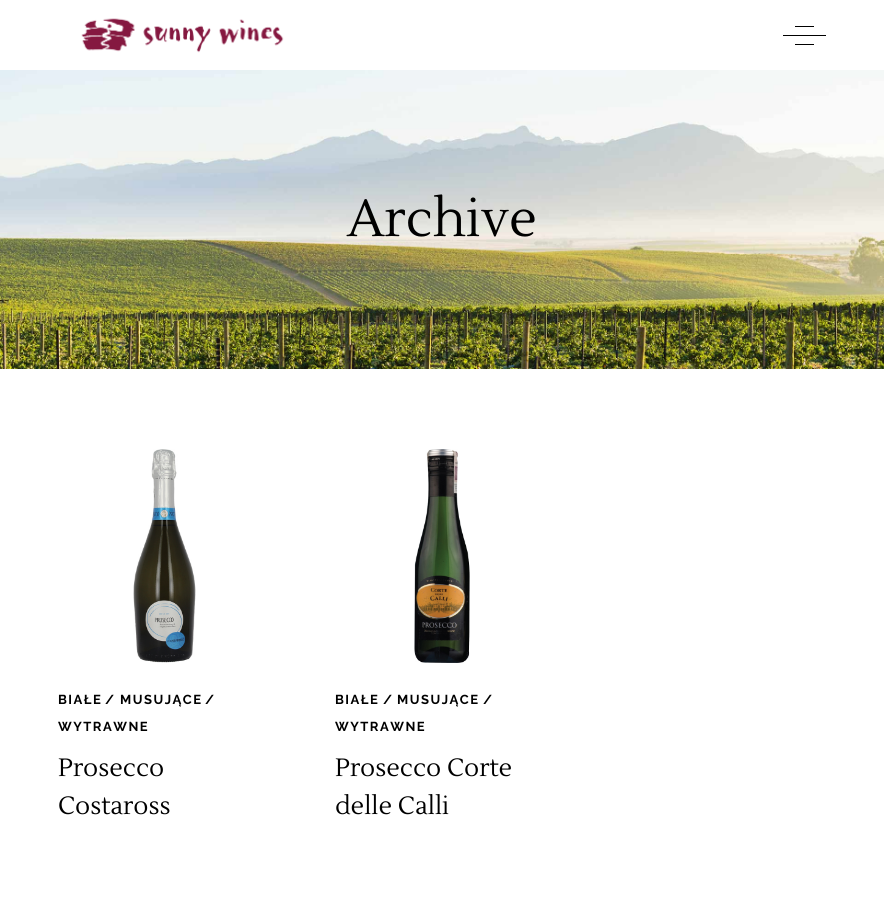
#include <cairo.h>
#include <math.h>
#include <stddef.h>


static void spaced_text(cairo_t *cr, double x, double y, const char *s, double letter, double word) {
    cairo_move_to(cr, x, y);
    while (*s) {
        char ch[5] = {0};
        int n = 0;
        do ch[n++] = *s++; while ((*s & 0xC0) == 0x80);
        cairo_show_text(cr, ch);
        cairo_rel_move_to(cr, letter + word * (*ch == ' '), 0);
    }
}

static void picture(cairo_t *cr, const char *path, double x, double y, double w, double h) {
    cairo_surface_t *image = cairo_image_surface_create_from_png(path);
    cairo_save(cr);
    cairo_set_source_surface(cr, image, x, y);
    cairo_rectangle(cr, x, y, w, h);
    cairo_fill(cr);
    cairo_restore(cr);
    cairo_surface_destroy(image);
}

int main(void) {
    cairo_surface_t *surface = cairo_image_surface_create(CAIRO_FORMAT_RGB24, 884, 916);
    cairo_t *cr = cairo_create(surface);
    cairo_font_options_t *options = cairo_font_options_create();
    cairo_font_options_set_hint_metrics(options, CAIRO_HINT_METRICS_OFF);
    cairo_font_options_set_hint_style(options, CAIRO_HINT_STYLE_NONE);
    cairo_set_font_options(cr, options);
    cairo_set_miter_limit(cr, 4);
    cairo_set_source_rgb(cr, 1, 1, 1);
    cairo_paint(cr);
    picture(cr, "img1.png", 81, 18, 203, 35);
    cairo_set_source_rgb(cr, 0, 0, 0);
    cairo_rectangle(cr, 795, 26, 19, 1);
    cairo_fill(cr);
    cairo_rectangle(cr, 783, 35, 43, 1);
    cairo_fill(cr);
    cairo_rectangle(cr, 795, 44, 19, 1);
    cairo_fill(cr);
    picture(cr, "img2.png", 0, 70, 884, 299);
    cairo_select_font_face(cr, "Lustria", CAIRO_FONT_SLANT_NORMAL, CAIRO_FONT_WEIGHT_NORMAL);
    cairo_set_font_size(cr, 52);
    cairo_move_to(cr, 347, 236);
    cairo_show_text(cr, "Archive");
    picture(cr, "img3.png", 133, 449, 63, 214);
    cairo_select_font_face(cr, "Raleway", CAIRO_FONT_SLANT_NORMAL, CAIRO_FONT_WEIGHT_BOLD);
    cairo_set_font_size(cr, 13);
    spaced_text(cr, 58, 704, "BIAŁE", 1.5, 0);
    spaced_text(cr, 105, 704, "/", 1.5, 0);
    spaced_text(cr, 120, 704, "MUSUJĄCE", 1.5, 0);
    spaced_text(cr, 205, 704, "/", 1.5, 0);
    spaced_text(cr, 58, 731, "WYTRAWNE", 1.5, 0);
    cairo_select_font_face(cr, "Lustria", CAIRO_FONT_SLANT_NORMAL, CAIRO_FONT_WEIGHT_NORMAL);
    cairo_set_font_size(cr, 25);
    cairo_move_to(cr, 58, 776);
    cairo_show_text(cr, "Prosecco");
    cairo_move_to(cr, 58, 814);
    cairo_show_text(cr, "Costaross");
    picture(cr, "img4.png", 414, 449, 56, 214);
    cairo_select_font_face(cr, "Raleway", CAIRO_FONT_SLANT_NORMAL, CAIRO_FONT_WEIGHT_BOLD);
    cairo_set_font_size(cr, 13);
    spaced_text(cr, 335, 704, "BIAŁE", 1.5, 0);
    spaced_text(cr, 383, 704, "/", 1.5, 0);
    spaced_text(cr, 397, 704, "MUSUJĄCE", 1.5, 0);
    spaced_text(cr, 483, 704, "/", 1.5, 0);
    spaced_text(cr, 335, 731, "WYTRAWNE", 1.5, 0);
    cairo_select_font_face(cr, "Lustria", CAIRO_FONT_SLANT_NORMAL, CAIRO_FONT_WEIGHT_NORMAL);
    cairo_set_font_size(cr, 25);
    cairo_move_to(cr, 335, 776);
    cairo_show_text(cr, "Prosecco Corte");
    cairo_move_to(cr, 335, 814);
    cairo_show_text(cr, "delle Calli");
    cairo_surface_write_to_png(surface, "page.png");
    cairo_font_options_destroy(options);
    cairo_destroy(cr);
    cairo_surface_destroy(surface);
    return 0;
}
